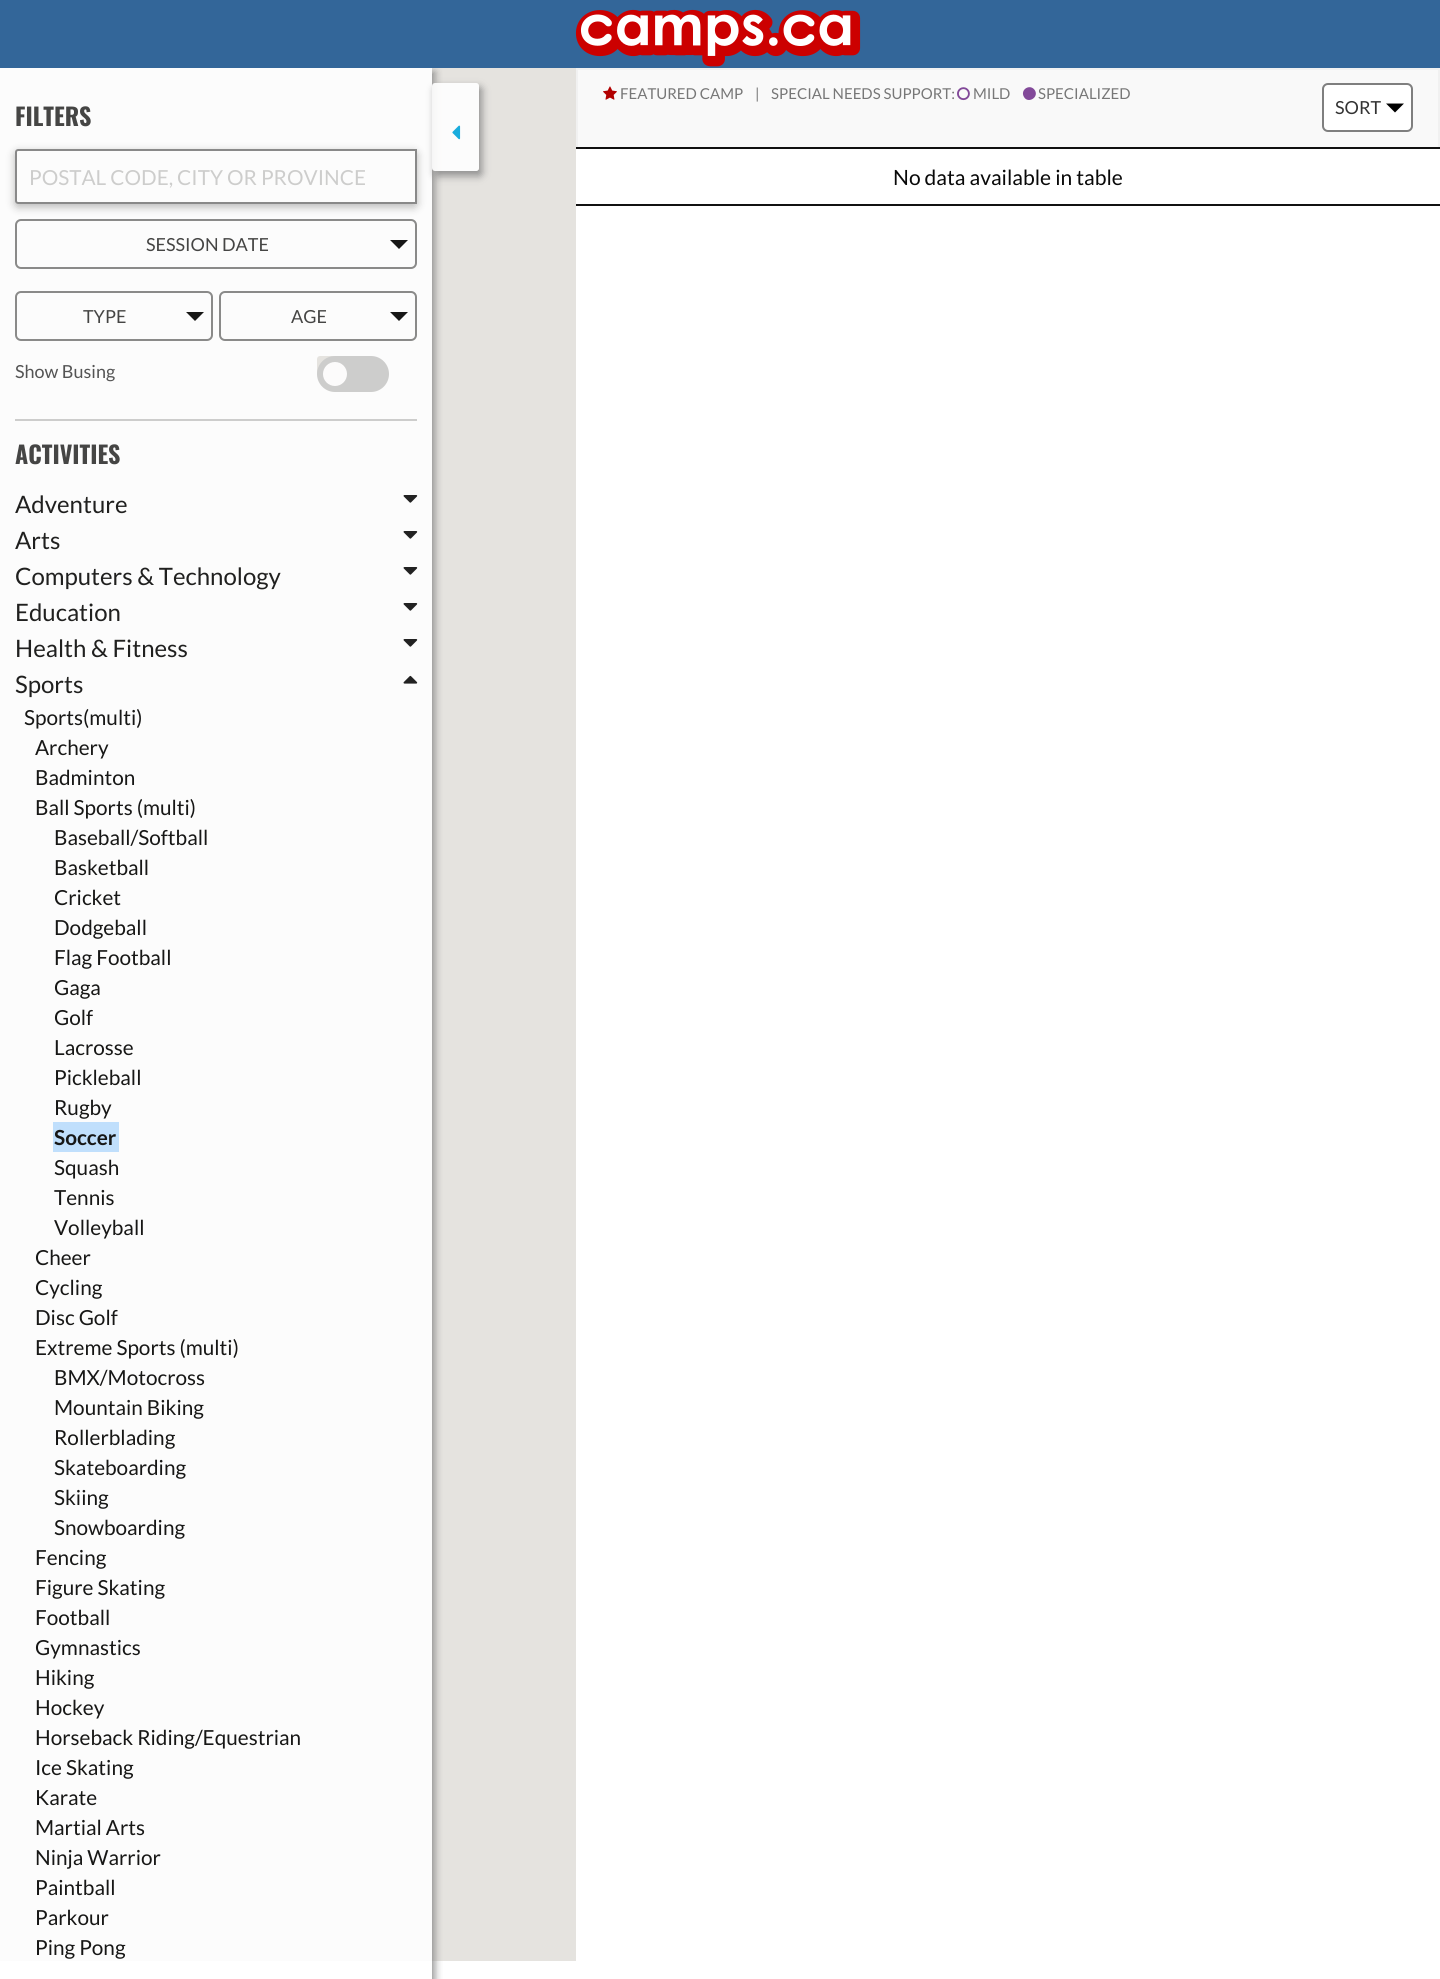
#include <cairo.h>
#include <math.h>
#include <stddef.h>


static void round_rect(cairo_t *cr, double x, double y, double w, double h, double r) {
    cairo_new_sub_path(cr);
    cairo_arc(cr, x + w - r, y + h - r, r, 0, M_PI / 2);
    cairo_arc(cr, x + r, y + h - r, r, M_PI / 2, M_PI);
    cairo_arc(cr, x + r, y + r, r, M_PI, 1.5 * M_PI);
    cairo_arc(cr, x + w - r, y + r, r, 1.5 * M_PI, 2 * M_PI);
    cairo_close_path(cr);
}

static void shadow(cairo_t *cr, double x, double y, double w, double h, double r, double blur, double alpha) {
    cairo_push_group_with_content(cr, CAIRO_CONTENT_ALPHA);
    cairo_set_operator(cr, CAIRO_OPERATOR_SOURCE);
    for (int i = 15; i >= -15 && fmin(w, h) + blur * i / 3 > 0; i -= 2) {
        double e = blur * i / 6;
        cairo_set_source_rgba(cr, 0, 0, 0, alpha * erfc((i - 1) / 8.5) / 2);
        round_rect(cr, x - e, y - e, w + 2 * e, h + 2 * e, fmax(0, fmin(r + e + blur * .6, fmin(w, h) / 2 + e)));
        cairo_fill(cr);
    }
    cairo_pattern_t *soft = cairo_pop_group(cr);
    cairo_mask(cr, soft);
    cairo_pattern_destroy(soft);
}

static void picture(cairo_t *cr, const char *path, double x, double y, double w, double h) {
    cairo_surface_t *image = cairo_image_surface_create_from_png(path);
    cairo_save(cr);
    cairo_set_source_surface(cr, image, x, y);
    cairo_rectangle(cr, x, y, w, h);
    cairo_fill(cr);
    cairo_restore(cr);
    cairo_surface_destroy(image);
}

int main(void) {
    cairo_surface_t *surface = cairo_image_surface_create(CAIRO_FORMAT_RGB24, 1440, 1979);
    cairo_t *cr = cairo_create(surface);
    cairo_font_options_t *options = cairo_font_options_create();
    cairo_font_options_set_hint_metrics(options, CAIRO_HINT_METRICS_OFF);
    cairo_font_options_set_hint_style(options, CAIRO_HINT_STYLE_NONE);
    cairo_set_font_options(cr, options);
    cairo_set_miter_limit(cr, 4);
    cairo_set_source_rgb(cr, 1, 1, 1);
    cairo_paint(cr);
    cairo_set_source_rgb(cr, 0.898, 0.89, 0.875);
    cairo_rectangle(cr, 432, 68, 144, 1893);
    cairo_fill(cr);
    cairo_set_source_rgb(cr, 0.988, 0.988, 0.988);
    cairo_rectangle(cr, 0, 68, 432, 1893);
    cairo_fill(cr);
    cairo_save(cr);
    cairo_rectangle(cr, 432, 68, 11, 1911);
    cairo_clip(cr);
    cairo_set_source_rgb(cr, 0.533, 0.533, 0.533);
    shadow(cr, 3, 72, 432, 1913, 0, 4, 0.9);
    cairo_restore(cr);
    cairo_set_source_rgb(cr, 0.2, 0.4, 0.6);
    cairo_rectangle(cr, 0, 0, 1440, 68);
    cairo_fill(cr);
    picture(cr, "img1.png", 575, 9, 286, 58);
    cairo_select_font_face(cr, "Oswald", CAIRO_FONT_SLANT_NORMAL, CAIRO_FONT_WEIGHT_BOLD);
    cairo_set_font_size(cr, 24);
    cairo_set_source_rgb(cr, 0.271, 0.271, 0.267);
    cairo_move_to(cr, 15, 126);
    cairo_show_text(cr, "FILTERS");
    cairo_set_source_rgb(cr, 0.09, 0.09, 0.086);
    shadow(cr, 15, 152, 402, 55, 3, 4.5, 0.3);
    cairo_set_source_rgb(cr, 0.988, 0.988, 0.988);
    cairo_new_path(cr);
    cairo_move_to(cr, 18, 149);
    cairo_line_to(cr, 417, 149);
    cairo_line_to(cr, 417, 204);
    cairo_line_to(cr, 18, 204);
    cairo_curve_to(cr, 16.5, 204, 15, 202.5, 15, 201);
    cairo_line_to(cr, 15, 152);
    cairo_curve_to(cr, 15, 150.5, 16.5, 149, 18, 149);
    cairo_close_path(cr);
    cairo_fill(cr);
    cairo_new_path(cr);
    cairo_move_to(cr, 18, 150);
    cairo_line_to(cr, 416, 150);
    cairo_line_to(cr, 416, 203);
    cairo_line_to(cr, 18, 203);
    cairo_curve_to(cr, 17, 203, 16, 202, 16, 201);
    cairo_line_to(cr, 16, 152);
    cairo_curve_to(cr, 16, 151, 17, 150, 18, 150);
    cairo_close_path(cr);
    cairo_set_source_rgba(cr, 0.09, 0.09, 0.086, 0.5);
    cairo_stroke(cr);
    cairo_select_font_face(cr, "Lato", CAIRO_FONT_SLANT_NORMAL, CAIRO_FONT_WEIGHT_NORMAL);
    cairo_set_font_size(cr, 20.75);
    cairo_set_source_rgb(cr, 0.804, 0.804, 0.8);
    cairo_move_to(cr, 29, 185);
    cairo_show_text(cr, "POSTAL CODE, CITY OR PROVINCE");
    round_rect(cr, 16, 220, 400, 48, 5);
    cairo_set_source_rgb(cr, 0.541, 0.541, 0.537);
    cairo_stroke(cr);
    cairo_set_font_size(cr, 18);
    cairo_set_source_rgb(cr, 0.271, 0.271, 0.267);
    cairo_move_to(cr, 146, 251);
    cairo_show_text(cr, "SESSION DATE");
    cairo_set_source_rgb(cr, 0.09, 0.09, 0.086);
    cairo_new_path(cr);
    cairo_move_to(cr, 390, 240);
    cairo_line_to(cr, 408, 240);
    cairo_line_to(cr, 399, 249);
    cairo_close_path(cr);
    cairo_fill(cr);
    round_rect(cr, 16, 292, 196, 48, 5);
    cairo_set_source_rgb(cr, 0.541, 0.541, 0.537);
    cairo_stroke(cr);
    cairo_set_source_rgb(cr, 0.271, 0.271, 0.267);
    cairo_move_to(cr, 83, 323);
    cairo_show_text(cr, "TYPE");
    cairo_set_source_rgb(cr, 0.09, 0.09, 0.086);
    cairo_new_path(cr);
    cairo_move_to(cr, 186, 312);
    cairo_line_to(cr, 204, 312);
    cairo_line_to(cr, 195, 321);
    cairo_close_path(cr);
    cairo_fill(cr);
    round_rect(cr, 220, 292, 196, 48, 5);
    cairo_set_source_rgb(cr, 0.541, 0.541, 0.537);
    cairo_stroke(cr);
    cairo_set_source_rgb(cr, 0.271, 0.271, 0.267);
    cairo_move_to(cr, 291, 323);
    cairo_show_text(cr, "AGE");
    cairo_set_source_rgb(cr, 0.09, 0.09, 0.086);
    cairo_new_path(cr);
    cairo_move_to(cr, 390, 312);
    cairo_line_to(cr, 408, 312);
    cairo_line_to(cr, 399, 321);
    cairo_close_path(cr);
    cairo_fill(cr);
    cairo_set_source_rgb(cr, 0.329, 0.329, 0.329);
    cairo_move_to(cr, 15, 378);
    cairo_show_text(cr, "Show Busing");
    cairo_set_source_rgb(cr, 0.898, 0.89, 0.875);
    round_rect(cr, 318, 357, 17, 17, 2);
    cairo_fill_preserve(cr);
    cairo_stroke(cr);
    cairo_set_source_rgb(cr, 0.804, 0.804, 0.8);
    round_rect(cr, 317, 356, 72, 36, 18);
    cairo_fill(cr);
    cairo_set_source_rgb(cr, 0.988, 0.984, 0.984);
    cairo_arc(cr, 335, 374, 12, 0, 2 * M_PI);
    cairo_fill(cr);
    cairo_set_source_rgb(cr, 0.804, 0.804, 0.8);
    cairo_rectangle(cr, 15, 419, 402, 2);
    cairo_fill(cr);
    cairo_select_font_face(cr, "Oswald", CAIRO_FONT_SLANT_NORMAL, CAIRO_FONT_WEIGHT_BOLD);
    cairo_set_font_size(cr, 24);
    cairo_set_source_rgb(cr, 0.271, 0.271, 0.267);
    cairo_move_to(cr, 15, 464);
    cairo_show_text(cr, "ACTIVITIES");
    cairo_select_font_face(cr, "Lato", CAIRO_FONT_SLANT_NORMAL, CAIRO_FONT_WEIGHT_NORMAL);
    cairo_set_source_rgb(cr, 0.125, 0.125, 0.122);
    cairo_move_to(cr, 15, 513);
    cairo_show_text(cr, "Adventure");
    picture(cr, "img2.png", 403, 495, 15, 8);
    cairo_move_to(cr, 15, 549);
    cairo_show_text(cr, "Arts");
    picture(cr, "img2.png", 403, 531, 15, 8);
    cairo_move_to(cr, 15, 585);
    cairo_show_text(cr, "Computers & Technology");
    picture(cr, "img2.png", 403, 567, 15, 8);
    cairo_move_to(cr, 15, 621);
    cairo_show_text(cr, "Education");
    picture(cr, "img2.png", 403, 603, 15, 8);
    cairo_move_to(cr, 15, 657);
    cairo_show_text(cr, "Health & Fitness");
    picture(cr, "img2.png", 403, 639, 15, 8);
    cairo_move_to(cr, 15, 693);
    cairo_show_text(cr, "Sports");
    picture(cr, "img3.png", 403, 675, 15, 9);
    cairo_set_font_size(cr, 20.75);
    cairo_set_source_rgb(cr, 0.09, 0.09, 0.086);
    cairo_move_to(cr, 24, 725);
    cairo_show_text(cr, "Sports(multi)");
    cairo_move_to(cr, 35, 755);
    cairo_show_text(cr, "Archery");
    cairo_move_to(cr, 35, 785);
    cairo_show_text(cr, "Badminton");
    cairo_move_to(cr, 35, 815);
    cairo_show_text(cr, "Ball Sports (multi)");
    cairo_move_to(cr, 54, 845);
    cairo_show_text(cr, "Baseball/Softball");
    cairo_move_to(cr, 54, 875);
    cairo_show_text(cr, "Basketball");
    cairo_move_to(cr, 54, 905);
    cairo_show_text(cr, "Cricket");
    cairo_move_to(cr, 54, 935);
    cairo_show_text(cr, "Dodgeball");
    cairo_move_to(cr, 54, 965);
    cairo_show_text(cr, "Flag Football");
    cairo_move_to(cr, 54, 995);
    cairo_show_text(cr, "Gaga");
    cairo_move_to(cr, 54, 1025);
    cairo_show_text(cr, "Golf");
    cairo_move_to(cr, 54, 1055);
    cairo_show_text(cr, "Lacrosse");
    cairo_move_to(cr, 54, 1085);
    cairo_show_text(cr, "Pickleball");
    cairo_move_to(cr, 54, 1115);
    cairo_show_text(cr, "Rugby");
    cairo_set_source_rgb(cr, 0.753, 0.875, 0.988);
    cairo_rectangle(cr, 53, 1122, 66, 30);
    cairo_fill(cr);
    cairo_select_font_face(cr, "Lato", CAIRO_FONT_SLANT_NORMAL, CAIRO_FONT_WEIGHT_BOLD);
    cairo_set_source_rgb(cr, 0.09, 0.09, 0.086);
    cairo_move_to(cr, 54, 1145);
    cairo_show_text(cr, "Soccer");
    cairo_select_font_face(cr, "Lato", CAIRO_FONT_SLANT_NORMAL, CAIRO_FONT_WEIGHT_NORMAL);
    cairo_move_to(cr, 54, 1175);
    cairo_show_text(cr, "Squash");
    cairo_move_to(cr, 54, 1205);
    cairo_show_text(cr, "Tennis");
    cairo_move_to(cr, 54, 1235);
    cairo_show_text(cr, "Volleyball");
    cairo_move_to(cr, 35, 1265);
    cairo_show_text(cr, "Cheer");
    cairo_move_to(cr, 35, 1295);
    cairo_show_text(cr, "Cycling");
    cairo_move_to(cr, 35, 1325);
    cairo_show_text(cr, "Disc Golf");
    cairo_move_to(cr, 35, 1355);
    cairo_show_text(cr, "Extreme Sports (multi)");
    cairo_move_to(cr, 54, 1385);
    cairo_show_text(cr, "BMX/Motocross");
    cairo_move_to(cr, 54, 1415);
    cairo_show_text(cr, "Mountain Biking");
    cairo_move_to(cr, 54, 1445);
    cairo_show_text(cr, "Rollerblading");
    cairo_move_to(cr, 54, 1475);
    cairo_show_text(cr, "Skateboarding");
    cairo_move_to(cr, 54, 1505);
    cairo_show_text(cr, "Skiing");
    cairo_move_to(cr, 54, 1535);
    cairo_show_text(cr, "Snowboarding");
    cairo_move_to(cr, 35, 1565);
    cairo_show_text(cr, "Fencing");
    cairo_move_to(cr, 35, 1595);
    cairo_show_text(cr, "Figure Skating");
    cairo_move_to(cr, 35, 1625);
    cairo_show_text(cr, "Football");
    cairo_move_to(cr, 35, 1655);
    cairo_show_text(cr, "Gymnastics");
    cairo_move_to(cr, 35, 1685);
    cairo_show_text(cr, "Hiking");
    cairo_move_to(cr, 35, 1715);
    cairo_show_text(cr, "Hockey");
    cairo_move_to(cr, 35, 1745);
    cairo_show_text(cr, "Horseback Riding/Equestrian");
    cairo_move_to(cr, 35, 1775);
    cairo_show_text(cr, "Ice Skating");
    cairo_move_to(cr, 35, 1805);
    cairo_show_text(cr, "Karate");
    cairo_move_to(cr, 35, 1835);
    cairo_show_text(cr, "Martial Arts");
    cairo_move_to(cr, 35, 1865);
    cairo_show_text(cr, "Ninja Warrior");
    cairo_move_to(cr, 35, 1895);
    cairo_show_text(cr, "Paintball");
    cairo_move_to(cr, 35, 1925);
    cairo_show_text(cr, "Parkour");
    cairo_move_to(cr, 35, 1955);
    cairo_show_text(cr, "Ping Pong");
    cairo_save(cr);
    cairo_set_fill_rule(cr, CAIRO_FILL_RULE_EVEN_ODD);
    cairo_new_path(cr);
    cairo_move_to(cr, 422, 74);
    cairo_line_to(cr, 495, 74);
    cairo_line_to(cr, 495, 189);
    cairo_line_to(cr, 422, 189);
    cairo_close_path(cr);
    cairo_move_to(cr, 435, 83);
    cairo_line_to(cr, 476, 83);
    cairo_curve_to(cr, 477.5, 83, 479, 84.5, 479, 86);
    cairo_line_to(cr, 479, 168);
    cairo_curve_to(cr, 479, 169.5, 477.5, 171, 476, 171);
    cairo_line_to(cr, 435, 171);
    cairo_curve_to(cr, 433.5, 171, 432, 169.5, 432, 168);
    cairo_line_to(cr, 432, 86);
    cairo_curve_to(cr, 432, 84.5, 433.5, 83, 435, 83);
    cairo_close_path(cr);
    cairo_clip(cr);
    cairo_set_source_rgb(cr, 0.533, 0.533, 0.533);
    shadow(cr, 435, 87, 47, 89, 3, 4, 0.9);
    cairo_restore(cr);
    cairo_set_source_rgba(cr, 1, 1, 1, 0.9);
    round_rect(cr, 432, 83, 47, 88, 3);
    cairo_fill(cr);
    picture(cr, "img4.png", 452, 125, 9, 15);
    cairo_set_source_rgb(cr, 0.067, 0.067, 0.067);
    cairo_rectangle(cr, 576, 204, 864, 2);
    cairo_fill(cr);
    cairo_set_source_rgb(cr, 0.973, 0.973, 0.973);
    cairo_rectangle(cr, 577, 69, 862, 79);
    cairo_fill_preserve(cr);
    cairo_set_source_rgb(cr, 0.945, 0.945, 0.945);
    cairo_stroke(cr);
    cairo_set_source_rgb(cr, 0.067, 0.067, 0.067);
    cairo_rectangle(cr, 576, 147, 864, 2);
    cairo_fill(cr);
    picture(cr, "img5.png", 603, 86, 14, 14);
    cairo_set_font_size(cr, 15);
    cairo_set_source_rgb(cr, 0.467, 0.467, 0.467);
    cairo_move_to(cr, 620, 99);
    cairo_show_text(cr, "FEATURED CAMP");
    cairo_move_to(cr, 755, 99);
    cairo_show_text(cr, "|    SPECIAL NEEDS SUPPORT:");
    picture(cr, "img6.png", 957, 87, 13, 14);
    cairo_move_to(cr, 973, 99);
    cairo_show_text(cr, "MILD");
    cairo_set_source_rgb(cr, 0.51, 0.286, 0.6);
    cairo_new_path(cr);
    cairo_move_to(cr, 1035, 90.5);
    cairo_curve_to(cr, 1039, 97.5, 1028, 104, 1024, 97);
    cairo_curve_to(cr, 1019.5, 89.5, 1030.5, 83, 1035, 90.5);
    cairo_close_path(cr);
    cairo_fill(cr);
    cairo_set_source_rgb(cr, 0.467, 0.467, 0.467);
    cairo_move_to(cr, 1038, 99);
    cairo_show_text(cr, "SPECIALIZED");
    cairo_set_source_rgb(cr, 1, 1, 1);
    round_rect(cr, 1323, 84, 89, 47, 5);
    cairo_fill_preserve(cr);
    cairo_set_source_rgb(cr, 0.498, 0.498, 0.498);
    cairo_stroke(cr);
    cairo_set_font_size(cr, 18);
    cairo_set_source_rgb(cr, 0.2, 0.2, 0.2);
    cairo_move_to(cr, 1335, 114);
    cairo_show_text(cr, "SORT");
    cairo_set_source_rgb(cr, 0, 0, 0);
    cairo_new_path(cr);
    cairo_move_to(cr, 1386, 103.5);
    cairo_line_to(cr, 1404, 103.5);
    cairo_line_to(cr, 1395, 112.5);
    cairo_close_path(cr);
    cairo_fill(cr);
    cairo_set_font_size(cr, 21);
    cairo_set_source_rgb(cr, 0.039, 0.039, 0.039);
    cairo_move_to(cr, 893, 185);
    cairo_show_text(cr, "No data available in table");
    cairo_surface_write_to_png(surface, "page.png");
    cairo_font_options_destroy(options);
    cairo_destroy(cr);
    cairo_surface_destroy(surface);
    return 0;
}
